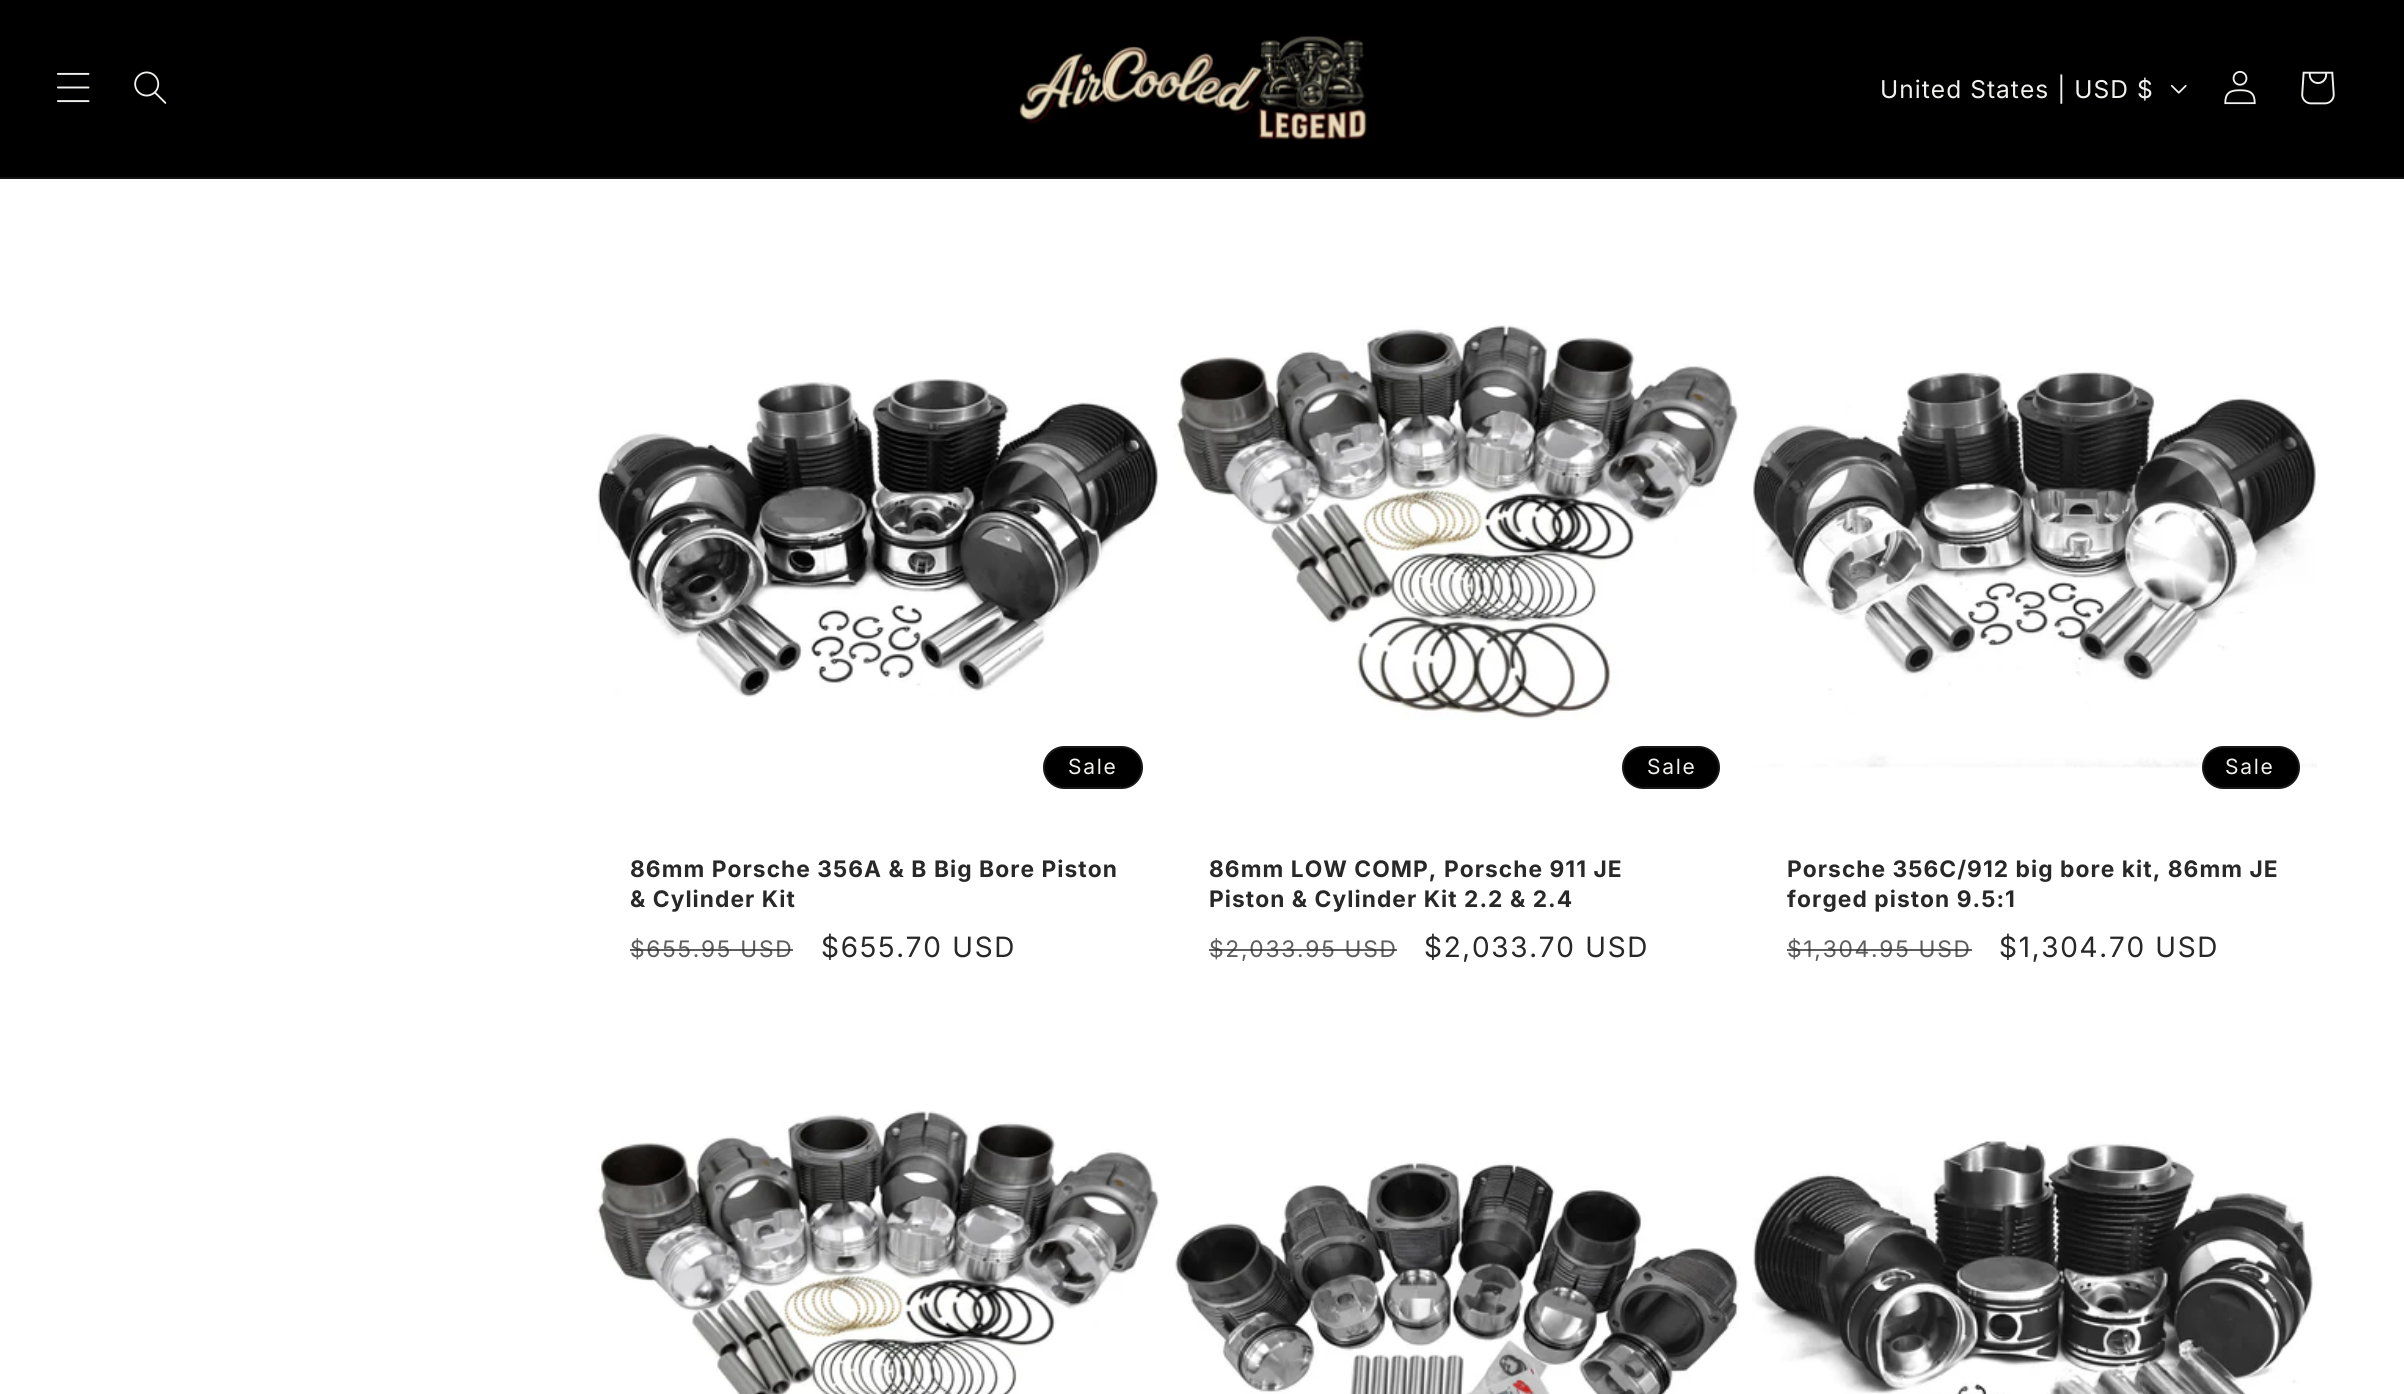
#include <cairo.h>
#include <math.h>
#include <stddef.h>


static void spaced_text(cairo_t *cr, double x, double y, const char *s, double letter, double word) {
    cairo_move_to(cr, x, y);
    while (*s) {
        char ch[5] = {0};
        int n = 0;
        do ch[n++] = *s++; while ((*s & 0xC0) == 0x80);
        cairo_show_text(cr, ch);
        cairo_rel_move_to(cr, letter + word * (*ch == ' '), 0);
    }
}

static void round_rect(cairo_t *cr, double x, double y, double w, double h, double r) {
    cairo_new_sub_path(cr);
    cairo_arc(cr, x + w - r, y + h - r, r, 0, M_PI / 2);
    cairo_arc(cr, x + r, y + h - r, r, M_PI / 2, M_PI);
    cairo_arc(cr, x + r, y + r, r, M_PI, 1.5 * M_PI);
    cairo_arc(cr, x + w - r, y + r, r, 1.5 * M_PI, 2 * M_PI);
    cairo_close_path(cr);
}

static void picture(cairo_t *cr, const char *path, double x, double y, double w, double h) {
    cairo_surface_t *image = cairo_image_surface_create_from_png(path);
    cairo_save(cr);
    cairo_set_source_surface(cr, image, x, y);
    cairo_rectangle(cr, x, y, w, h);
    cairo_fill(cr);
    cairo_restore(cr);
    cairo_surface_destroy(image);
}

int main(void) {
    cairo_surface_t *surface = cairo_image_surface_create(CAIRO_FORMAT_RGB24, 2404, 1394);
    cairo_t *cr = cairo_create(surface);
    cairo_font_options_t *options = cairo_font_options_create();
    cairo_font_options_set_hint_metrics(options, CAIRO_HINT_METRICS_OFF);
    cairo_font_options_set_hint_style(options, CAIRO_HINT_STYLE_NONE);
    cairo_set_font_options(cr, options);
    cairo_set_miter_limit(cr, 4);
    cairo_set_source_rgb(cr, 1, 1, 1);
    cairo_paint(cr);
    cairo_set_source_rgb(cr, 0, 0, 0);
    cairo_rectangle(cr, 0, 0, 2404, 177);
    cairo_fill(cr);
    cairo_set_source_rgb(cr, 0.075, 0.075, 0.075);
    cairo_rectangle(cr, 0, 177, 2404, 2);
    cairo_fill(cr);
    picture(cr, "img1.png", 57, 72, 33, 31);
    picture(cr, "img2.png", 134, 71, 33, 33);
    picture(cr, "img3.png", 1018, 35, 349, 105);
    cairo_select_font_face(cr, "Inter", CAIRO_FONT_SLANT_NORMAL, CAIRO_FONT_WEIGHT_NORMAL);
    cairo_set_font_size(cr, 24.5);
    cairo_set_source_rgb(cr, 0.945, 0.945, 0.933);
    spaced_text(cr, 1880, 98, "United States | USD $", 1.05, 0);
    picture(cr, "img4.png", 2170, 84, 17, 10);
    picture(cr, "img5.png", 2224, 70, 32, 35);
    picture(cr, "img6.png", 2301, 71, 34, 34);
    picture(cr, "img7.png", 595, 379, 565, 318);
    cairo_set_source_rgb(cr, 0, 0, 0);
    round_rect(cr, 1043, 746, 100, 43, 21.5);
    cairo_fill(cr);
    round_rect(cr, 1044, 747, 98, 41, 20.5);
    cairo_set_source_rgba(cr, 0.945, 0.945, 0.933, 0.1);
    cairo_stroke(cr);
    cairo_set_font_size(cr, 21);
    cairo_set_source_rgb(cr, 0.945, 0.945, 0.933);
    spaced_text(cr, 1068, 774, "Sale", 1.75, 0);
    cairo_select_font_face(cr, "Inter", CAIRO_FONT_SLANT_NORMAL, CAIRO_FONT_WEIGHT_BOLD);
    cairo_set_font_size(cr, 22.75);
    cairo_set_source_rgb(cr, 0.157, 0.157, 0.157);
    spaced_text(cr, 630, 877, "86mm Porsche 356A & B Big Bore Piston", 1.05, 0);
    spaced_text(cr, 630, 907, "& Cylinder Kit", 1.05, 0);
    cairo_select_font_face(cr, "Inter", CAIRO_FONT_SLANT_NORMAL, CAIRO_FONT_WEIGHT_NORMAL);
    cairo_set_source_rgb(cr, 0.369, 0.369, 0.369);
    spaced_text(cr, 630, 957, "$655.95 USD", 1.75, 0);
    cairo_set_source_rgba(cr, 0.157, 0.157, 0.157, 0.75);
    cairo_rectangle(cr, 630, 949, 163, 2);
    cairo_fill(cr);
    cairo_select_font_face(cr, "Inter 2", CAIRO_FONT_SLANT_NORMAL, CAIRO_FONT_WEIGHT_NORMAL);
    cairo_set_font_size(cr, 28);
    cairo_set_source_rgb(cr, 0.157, 0.157, 0.157);
    spaced_text(cr, 821, 957, "$655.70 USD", 1.75, 0);
    picture(cr, "img8.png", 1174, 325, 565, 395);
    cairo_set_source_rgb(cr, 0, 0, 0);
    round_rect(cr, 1622, 746, 98, 43, 21.5);
    cairo_fill(cr);
    round_rect(cr, 1623, 747, 96, 41, 20.5);
    cairo_set_source_rgba(cr, 0.945, 0.945, 0.933, 0.1);
    cairo_stroke(cr);
    cairo_select_font_face(cr, "Inter", CAIRO_FONT_SLANT_NORMAL, CAIRO_FONT_WEIGHT_NORMAL);
    cairo_set_font_size(cr, 21);
    cairo_set_source_rgb(cr, 0.945, 0.945, 0.933);
    spaced_text(cr, 1647, 774, "Sale", 1.75, 0);
    cairo_select_font_face(cr, "Inter", CAIRO_FONT_SLANT_NORMAL, CAIRO_FONT_WEIGHT_BOLD);
    cairo_set_font_size(cr, 22.75);
    cairo_set_source_rgb(cr, 0.157, 0.157, 0.157);
    spaced_text(cr, 1209, 877, "86mm LOW COMP, Porsche 911 JE", 1.05, 0);
    spaced_text(cr, 1209, 907, "Piston & Cylinder Kit 2.2 & 2.4", 1.05, 0);
    cairo_select_font_face(cr, "Inter", CAIRO_FONT_SLANT_NORMAL, CAIRO_FONT_WEIGHT_NORMAL);
    cairo_set_source_rgb(cr, 0.369, 0.369, 0.369);
    spaced_text(cr, 1209, 957, "$2,033.95 USD", 1.75, 0);
    cairo_set_source_rgba(cr, 0.157, 0.157, 0.157, 0.75);
    cairo_rectangle(cr, 1209, 949, 188, 2);
    cairo_fill(cr);
    cairo_select_font_face(cr, "Inter 2", CAIRO_FONT_SLANT_NORMAL, CAIRO_FONT_WEIGHT_NORMAL);
    cairo_set_font_size(cr, 28);
    cairo_set_source_rgb(cr, 0.157, 0.157, 0.157);
    spaced_text(cr, 1424, 957, "$2,033.70 USD", 1.75, 0);
    picture(cr, "img9.png", 1752, 369, 565, 399);
    cairo_set_source_rgb(cr, 0, 0, 0);
    round_rect(cr, 2202, 746, 98, 43, 21.5);
    cairo_fill(cr);
    round_rect(cr, 2203, 747, 96, 41, 20.5);
    cairo_set_source_rgba(cr, 0.945, 0.945, 0.933, 0.1);
    cairo_stroke(cr);
    cairo_select_font_face(cr, "Inter", CAIRO_FONT_SLANT_NORMAL, CAIRO_FONT_WEIGHT_NORMAL);
    cairo_set_font_size(cr, 21);
    cairo_set_source_rgb(cr, 0.945, 0.945, 0.933);
    spaced_text(cr, 2225, 774, "Sale", 1.75, 0);
    cairo_select_font_face(cr, "Inter", CAIRO_FONT_SLANT_NORMAL, CAIRO_FONT_WEIGHT_BOLD);
    cairo_set_font_size(cr, 22.75);
    cairo_set_source_rgb(cr, 0.157, 0.157, 0.157);
    spaced_text(cr, 1787, 877, "Porsche 356C/912 big bore kit, 86mm JE", 1.05, 0);
    spaced_text(cr, 1787, 907, "forged piston 9.5:1", 1.05, 0);
    cairo_select_font_face(cr, "Inter", CAIRO_FONT_SLANT_NORMAL, CAIRO_FONT_WEIGHT_NORMAL);
    cairo_set_source_rgb(cr, 0.369, 0.369, 0.369);
    spaced_text(cr, 1787, 957, "$1,304.95 USD", 1.75, 0);
    cairo_set_source_rgba(cr, 0.157, 0.157, 0.157, 0.75);
    cairo_rectangle(cr, 1787, 949, 185, 2);
    cairo_fill(cr);
    cairo_select_font_face(cr, "Inter 2", CAIRO_FONT_SLANT_NORMAL, CAIRO_FONT_WEIGHT_NORMAL);
    cairo_set_font_size(cr, 28);
    cairo_set_source_rgb(cr, 0.157, 0.157, 0.157);
    spaced_text(cr, 1999, 957, "$1,304.70 USD", 1.75, 0);
    picture(cr, "img10.png", 595, 1111, 565, 283);
    picture(cr, "img11.png", 1174, 1161, 566, 233);
    picture(cr, "img12.png", 1752, 1139, 565, 255);
    cairo_surface_write_to_png(surface, "page.png");
    cairo_font_options_destroy(options);
    cairo_destroy(cr);
    cairo_surface_destroy(surface);
    return 0;
}
